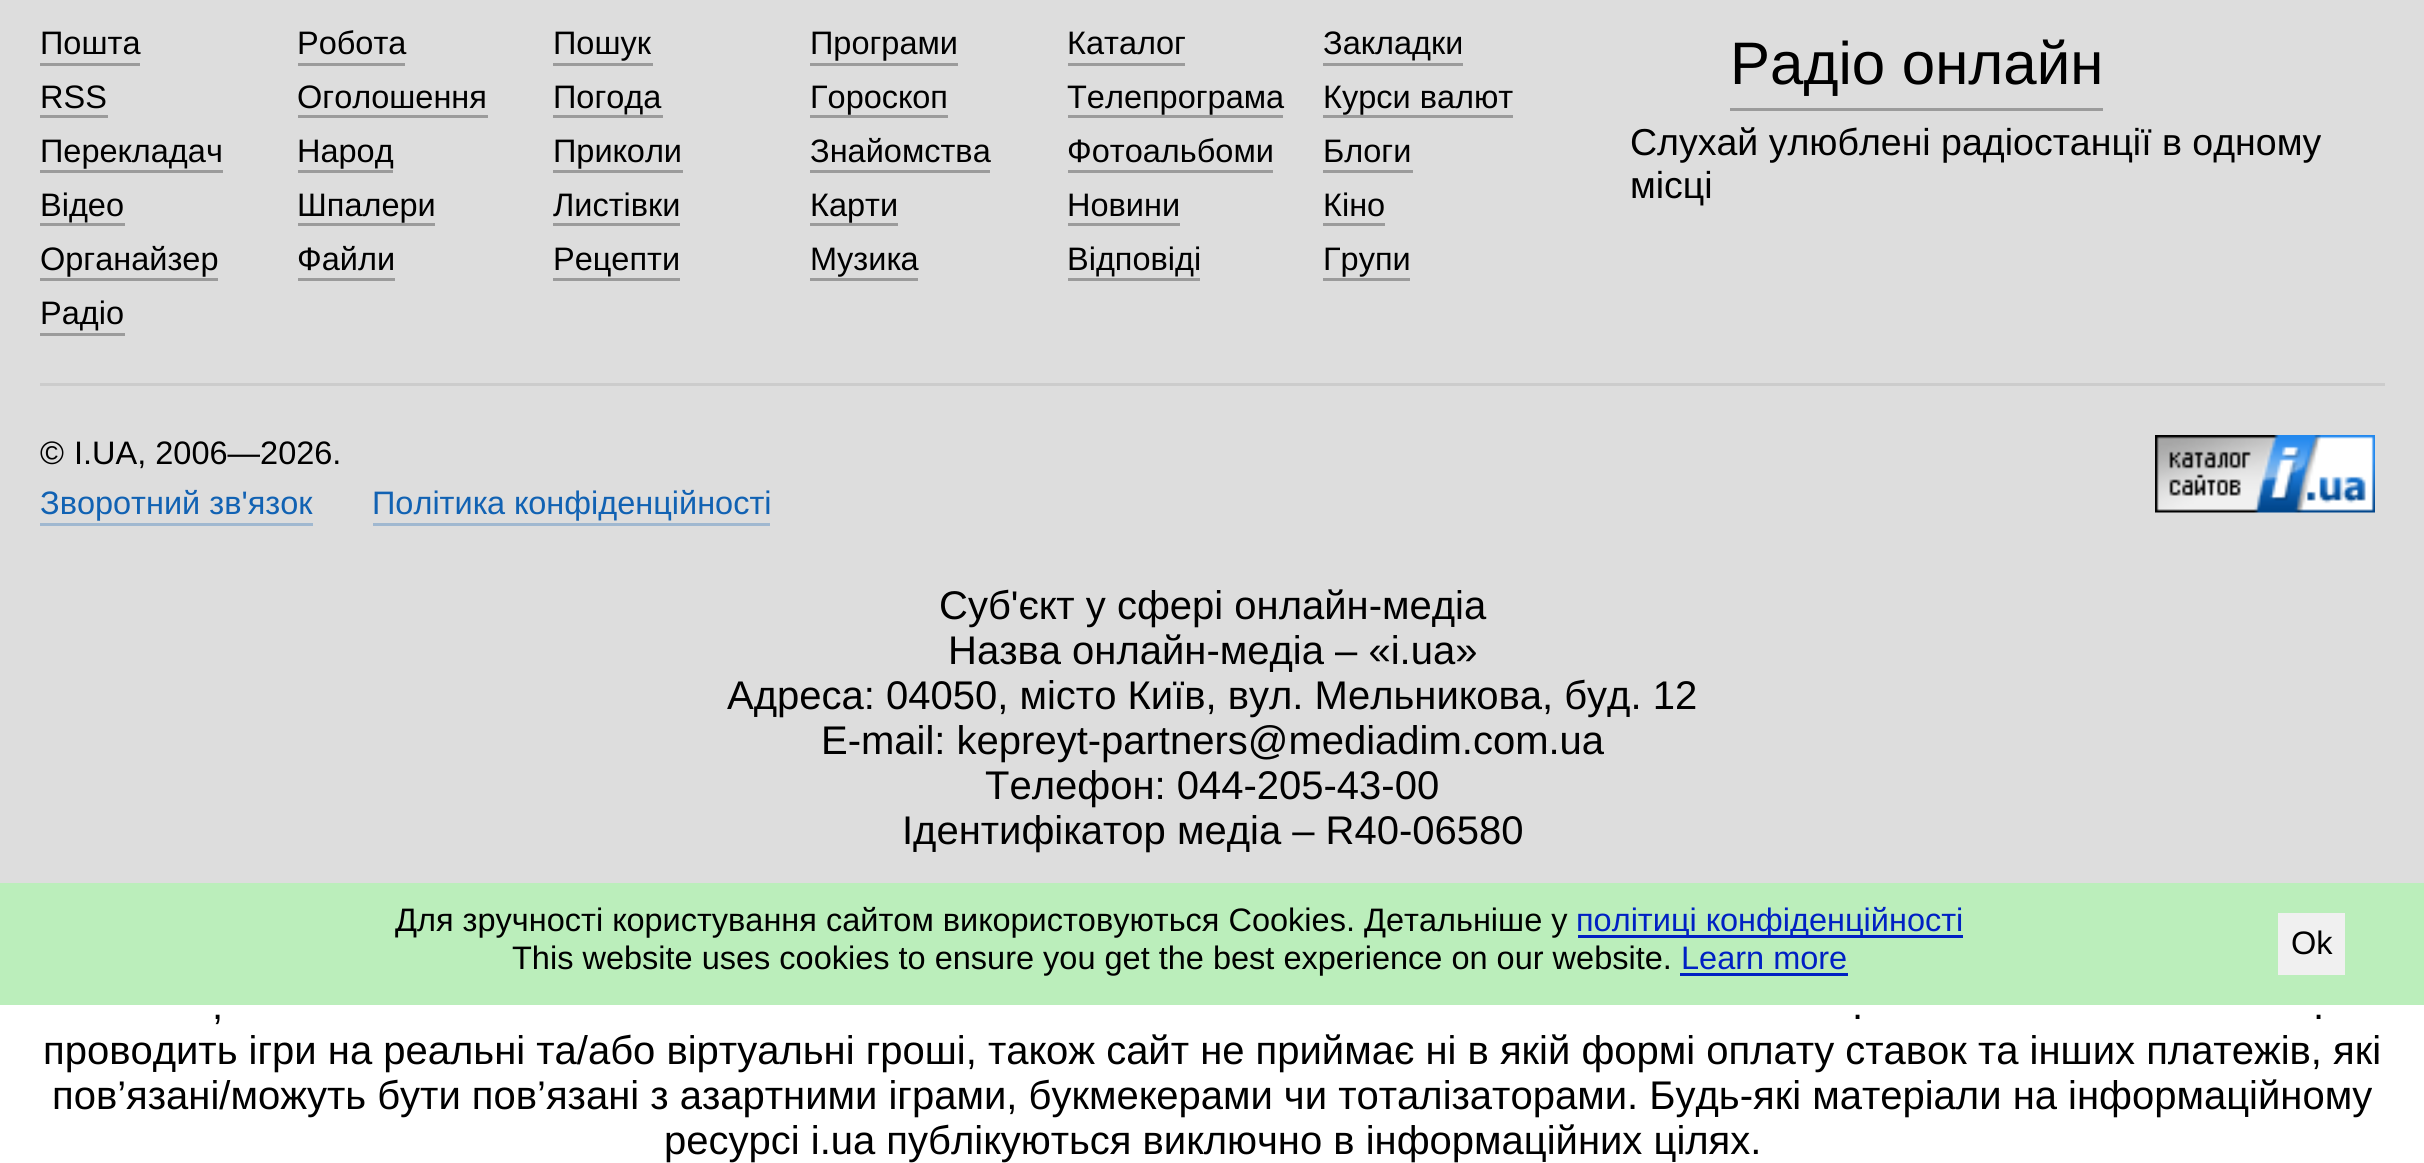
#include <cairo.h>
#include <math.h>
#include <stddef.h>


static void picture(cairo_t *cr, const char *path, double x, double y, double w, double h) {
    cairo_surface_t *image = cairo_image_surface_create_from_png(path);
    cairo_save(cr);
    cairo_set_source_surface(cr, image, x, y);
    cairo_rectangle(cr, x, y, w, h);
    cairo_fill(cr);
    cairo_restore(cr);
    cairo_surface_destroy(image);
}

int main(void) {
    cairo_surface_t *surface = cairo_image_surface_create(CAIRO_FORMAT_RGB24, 2424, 1163);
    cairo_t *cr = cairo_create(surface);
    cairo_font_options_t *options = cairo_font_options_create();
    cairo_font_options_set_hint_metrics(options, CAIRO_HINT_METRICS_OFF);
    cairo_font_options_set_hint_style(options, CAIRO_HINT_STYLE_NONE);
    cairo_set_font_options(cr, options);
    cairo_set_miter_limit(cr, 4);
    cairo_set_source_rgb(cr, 1, 1, 1);
    cairo_paint(cr);
    cairo_set_source_rgb(cr, 0.867, 0.867, 0.867);
    cairo_rectangle(cr, 0, 0, 2424, 883);
    cairo_fill(cr);
    cairo_select_font_face(cr, "Liberation Sans", CAIRO_FONT_SLANT_NORMAL, CAIRO_FONT_WEIGHT_NORMAL);
    cairo_set_font_size(cr, 32.5);
    cairo_set_source_rgb(cr, 0, 0, 0);
    cairo_move_to(cr, 40, 54);
    cairo_show_text(cr, "Пошта");
    cairo_set_source_rgb(cr, 0.608, 0.608, 0.608);
    cairo_rectangle(cr, 40, 63, 100, 3);
    cairo_fill(cr);
    cairo_set_source_rgb(cr, 0, 0, 0);
    cairo_move_to(cr, 297, 54);
    cairo_show_text(cr, "Робота");
    cairo_set_source_rgb(cr, 0.608, 0.608, 0.608);
    cairo_rectangle(cr, 298, 63, 107, 3);
    cairo_fill(cr);
    cairo_set_source_rgb(cr, 0, 0, 0);
    cairo_move_to(cr, 553, 54);
    cairo_show_text(cr, "Пошук");
    cairo_set_source_rgb(cr, 0.608, 0.608, 0.608);
    cairo_rectangle(cr, 553, 63, 100, 3);
    cairo_fill(cr);
    cairo_set_source_rgb(cr, 0, 0, 0);
    cairo_move_to(cr, 810, 54);
    cairo_show_text(cr, "Програми");
    cairo_set_source_rgb(cr, 0.608, 0.608, 0.608);
    cairo_rectangle(cr, 810, 63, 148, 3);
    cairo_fill(cr);
    cairo_set_source_rgb(cr, 0, 0, 0);
    cairo_move_to(cr, 1067, 54);
    cairo_show_text(cr, "Каталог");
    cairo_set_source_rgb(cr, 0.608, 0.608, 0.608);
    cairo_rectangle(cr, 1068, 63, 117, 3);
    cairo_fill(cr);
    cairo_set_source_rgb(cr, 0, 0, 0);
    cairo_move_to(cr, 1323, 54);
    cairo_show_text(cr, "Закладки");
    cairo_set_source_rgb(cr, 0.608, 0.608, 0.608);
    cairo_rectangle(cr, 1323, 63, 140, 3);
    cairo_fill(cr);
    cairo_set_source_rgb(cr, 0, 0, 0);
    cairo_move_to(cr, 40, 108);
    cairo_show_text(cr, "RSS");
    cairo_set_source_rgb(cr, 0.608, 0.608, 0.608);
    cairo_rectangle(cr, 40, 115, 68, 3);
    cairo_fill(cr);
    cairo_set_source_rgb(cr, 0, 0, 0);
    cairo_move_to(cr, 297, 108);
    cairo_show_text(cr, "Оголошення");
    cairo_set_source_rgb(cr, 0.608, 0.608, 0.608);
    cairo_rectangle(cr, 298, 115, 190, 3);
    cairo_fill(cr);
    cairo_set_source_rgb(cr, 0, 0, 0);
    cairo_move_to(cr, 553, 108);
    cairo_show_text(cr, "Погода");
    cairo_set_source_rgb(cr, 0.608, 0.608, 0.608);
    cairo_rectangle(cr, 553, 115, 110, 3);
    cairo_fill(cr);
    cairo_set_source_rgb(cr, 0, 0, 0);
    cairo_move_to(cr, 810, 108);
    cairo_show_text(cr, "Гороскоп");
    cairo_set_source_rgb(cr, 0.608, 0.608, 0.608);
    cairo_rectangle(cr, 810, 115, 138, 3);
    cairo_fill(cr);
    cairo_set_source_rgb(cr, 0, 0, 0);
    cairo_move_to(cr, 1067, 108);
    cairo_show_text(cr, "Телепрограма");
    cairo_set_source_rgb(cr, 0.608, 0.608, 0.608);
    cairo_rectangle(cr, 1068, 115, 215, 3);
    cairo_fill(cr);
    cairo_set_source_rgb(cr, 0, 0, 0);
    cairo_move_to(cr, 1323, 108);
    cairo_show_text(cr, "Курси валют");
    cairo_set_source_rgb(cr, 0.608, 0.608, 0.608);
    cairo_rectangle(cr, 1323, 115, 190, 3);
    cairo_fill(cr);
    cairo_set_source_rgb(cr, 0, 0, 0);
    cairo_move_to(cr, 40, 162);
    cairo_show_text(cr, "Перекладач");
    cairo_set_source_rgb(cr, 0.608, 0.608, 0.608);
    cairo_rectangle(cr, 40, 170, 183, 3);
    cairo_fill(cr);
    cairo_set_source_rgb(cr, 0, 0, 0);
    cairo_move_to(cr, 297, 162);
    cairo_show_text(cr, "Народ");
    cairo_set_source_rgb(cr, 0.608, 0.608, 0.608);
    cairo_rectangle(cr, 298, 170, 95, 3);
    cairo_fill(cr);
    cairo_set_source_rgb(cr, 0, 0, 0);
    cairo_move_to(cr, 553, 162);
    cairo_show_text(cr, "Приколи");
    cairo_set_source_rgb(cr, 0.608, 0.608, 0.608);
    cairo_rectangle(cr, 553, 170, 130, 3);
    cairo_fill(cr);
    cairo_set_source_rgb(cr, 0, 0, 0);
    cairo_move_to(cr, 810, 162);
    cairo_show_text(cr, "Знайомства");
    cairo_set_source_rgb(cr, 0.608, 0.608, 0.608);
    cairo_rectangle(cr, 810, 170, 180, 3);
    cairo_fill(cr);
    cairo_set_source_rgb(cr, 0, 0, 0);
    cairo_move_to(cr, 1067, 162);
    cairo_show_text(cr, "Фотоальбоми");
    cairo_set_source_rgb(cr, 0.608, 0.608, 0.608);
    cairo_rectangle(cr, 1068, 170, 205, 3);
    cairo_fill(cr);
    cairo_set_source_rgb(cr, 0, 0, 0);
    cairo_move_to(cr, 1323, 162);
    cairo_show_text(cr, "Блоги");
    cairo_set_source_rgb(cr, 0.608, 0.608, 0.608);
    cairo_rectangle(cr, 1323, 170, 90, 3);
    cairo_fill(cr);
    cairo_set_source_rgb(cr, 0, 0, 0);
    cairo_move_to(cr, 40, 216);
    cairo_show_text(cr, "Відео");
    cairo_set_source_rgb(cr, 0.608, 0.608, 0.608);
    cairo_rectangle(cr, 40, 223, 85, 3);
    cairo_fill(cr);
    cairo_set_source_rgb(cr, 0, 0, 0);
    cairo_move_to(cr, 297, 216);
    cairo_show_text(cr, "Шпалери");
    cairo_set_source_rgb(cr, 0.608, 0.608, 0.608);
    cairo_rectangle(cr, 298, 223, 137, 3);
    cairo_fill(cr);
    cairo_set_source_rgb(cr, 0, 0, 0);
    cairo_move_to(cr, 553, 216);
    cairo_show_text(cr, "Листівки");
    cairo_set_source_rgb(cr, 0.608, 0.608, 0.608);
    cairo_rectangle(cr, 553, 223, 127, 3);
    cairo_fill(cr);
    cairo_set_source_rgb(cr, 0, 0, 0);
    cairo_move_to(cr, 810, 216);
    cairo_show_text(cr, "Карти");
    cairo_set_source_rgb(cr, 0.608, 0.608, 0.608);
    cairo_rectangle(cr, 810, 223, 88, 3);
    cairo_fill(cr);
    cairo_set_source_rgb(cr, 0, 0, 0);
    cairo_move_to(cr, 1067, 216);
    cairo_show_text(cr, "Новини");
    cairo_set_source_rgb(cr, 0.608, 0.608, 0.608);
    cairo_rectangle(cr, 1068, 223, 112, 3);
    cairo_fill(cr);
    cairo_set_source_rgb(cr, 0, 0, 0);
    cairo_move_to(cr, 1323, 216);
    cairo_show_text(cr, "Кіно");
    cairo_set_source_rgb(cr, 0.608, 0.608, 0.608);
    cairo_rectangle(cr, 1323, 223, 62, 3);
    cairo_fill(cr);
    cairo_set_source_rgb(cr, 0, 0, 0);
    cairo_move_to(cr, 40, 270);
    cairo_show_text(cr, "Органайзер");
    cairo_set_source_rgb(cr, 0.608, 0.608, 0.608);
    cairo_rectangle(cr, 40, 278, 178, 3);
    cairo_fill(cr);
    cairo_set_source_rgb(cr, 0, 0, 0);
    cairo_move_to(cr, 297, 270);
    cairo_show_text(cr, "Файли");
    cairo_set_source_rgb(cr, 0.608, 0.608, 0.608);
    cairo_rectangle(cr, 298, 278, 97, 3);
    cairo_fill(cr);
    cairo_set_source_rgb(cr, 0, 0, 0);
    cairo_move_to(cr, 553, 270);
    cairo_show_text(cr, "Рецепти");
    cairo_set_source_rgb(cr, 0.608, 0.608, 0.608);
    cairo_rectangle(cr, 553, 278, 127, 3);
    cairo_fill(cr);
    cairo_set_source_rgb(cr, 0, 0, 0);
    cairo_move_to(cr, 810, 270);
    cairo_show_text(cr, "Музика");
    cairo_set_source_rgb(cr, 0.608, 0.608, 0.608);
    cairo_rectangle(cr, 810, 278, 108, 3);
    cairo_fill(cr);
    cairo_set_source_rgb(cr, 0, 0, 0);
    cairo_move_to(cr, 1067, 270);
    cairo_show_text(cr, "Відповіді");
    cairo_set_source_rgb(cr, 0.608, 0.608, 0.608);
    cairo_rectangle(cr, 1068, 278, 132, 3);
    cairo_fill(cr);
    cairo_set_source_rgb(cr, 0, 0, 0);
    cairo_move_to(cr, 1323, 270);
    cairo_show_text(cr, "Групи");
    cairo_set_source_rgb(cr, 0.608, 0.608, 0.608);
    cairo_rectangle(cr, 1323, 278, 87, 3);
    cairo_fill(cr);
    cairo_set_source_rgb(cr, 0, 0, 0);
    cairo_move_to(cr, 40, 324);
    cairo_show_text(cr, "Радіо");
    cairo_set_source_rgb(cr, 0.608, 0.608, 0.608);
    cairo_rectangle(cr, 40, 333, 85, 3);
    cairo_fill(cr);
    cairo_rectangle(cr, 1730, 108, 373, 3);
    cairo_fill(cr);
    cairo_set_font_size(cr, 60);
    cairo_set_source_rgb(cr, 0, 0, 0);
    cairo_move_to(cr, 1730, 84);
    cairo_show_text(cr, "Радіо онлайн");
    cairo_set_font_size(cr, 37.5);
    cairo_move_to(cr, 1630, 155);
    cairo_show_text(cr, "Слухай улюблені радіостанції в одному");
    cairo_move_to(cr, 1630, 198);
    cairo_show_text(cr, "місці");
    cairo_set_source_rgb(cr, 0.8, 0.8, 0.8);
    cairo_rectangle(cr, 40, 383, 2345, 3);
    cairo_fill(cr);
    cairo_set_font_size(cr, 32.5);
    cairo_set_source_rgb(cr, 0, 0, 0);
    cairo_move_to(cr, 40, 464);
    cairo_show_text(cr, "©");
    cairo_move_to(cr, 74, 464);
    cairo_show_text(cr, "I.UA, 2006—2026.");
    picture(cr, "img1.png", 2155, 435, 220, 78);
    cairo_set_source_rgb(cr, 0.067, 0.384, 0.702);
    cairo_move_to(cr, 40, 514);
    cairo_show_text(cr, "Зворотний зв'язок");
    cairo_set_source_rgb(cr, 0.627, 0.722, 0.816);
    cairo_rectangle(cr, 40, 523, 273, 3);
    cairo_fill(cr);
    cairo_set_source_rgb(cr, 0.067, 0.384, 0.702);
    cairo_move_to(cr, 372, 514);
    cairo_show_text(cr, "Політика конфіденційності");
    cairo_set_source_rgb(cr, 0.627, 0.722, 0.816);
    cairo_rectangle(cr, 373, 523, 397, 3);
    cairo_fill(cr);
    cairo_set_font_size(cr, 40);
    cairo_set_source_rgb(cr, 0, 0, 0);
    cairo_move_to(cr, 939, 619);
    cairo_show_text(cr, "Суб'єкт у сфері онлайн-медіа");
    cairo_move_to(cr, 948, 664);
    cairo_show_text(cr, "Назва онлайн-медіа – «i.ua»");
    cairo_move_to(cr, 727, 709);
    cairo_show_text(cr, "Адреса: 04050, місто Київ, вул. Мельникова, буд. 12");
    cairo_move_to(cr, 821, 754);
    cairo_show_text(cr, "E-mail: kepreyt-partners@mediadim.com.ua");
    cairo_move_to(cr, 985, 799);
    cairo_show_text(cr, "Телефон: 044-205-43-00");
    cairo_move_to(cr, 902, 844);
    cairo_show_text(cr, "Ідентифікатор медіа – R40-06580");
    cairo_set_source_rgb(cr, 0.733, 0.933, 0.733);
    cairo_rectangle(cr, 0, 883, 2424, 122);
    cairo_fill(cr);
    cairo_set_font_size(cr, 32.5);
    cairo_set_source_rgb(cr, 0, 0, 0);
    cairo_move_to(cr, 395, 931);
    cairo_show_text(cr, "Для зручності користування сайтом використовуються Cookies. Детальніше у");
    cairo_set_source_rgb(cr, 0, 0.129, 0.765);
    cairo_rectangle(cr, 1578, 935, 385, 3);
    cairo_fill(cr);
    cairo_move_to(cr, 1576, 931);
    cairo_show_text(cr, "політиці конфіденційності");
    cairo_set_source_rgb(cr, 0.941, 0.941, 0.941);
    cairo_rectangle(cr, 2278, 913, 67, 62);
    cairo_fill(cr);
    cairo_set_source_rgb(cr, 0, 0, 0);
    cairo_move_to(cr, 2291, 954);
    cairo_show_text(cr, "Ok");
    cairo_move_to(cr, 512, 969);
    cairo_show_text(cr, "This website uses cookies to ensure you get the best experience on our website.");
    cairo_set_source_rgb(cr, 0, 0.129, 0.765);
    cairo_move_to(cr, 1681, 969);
    cairo_show_text(cr, "Learn more");
    cairo_rectangle(cr, 1680, 973, 168, 3);
    cairo_fill(cr);
    cairo_set_font_size(cr, 40);
    cairo_set_source_rgb(cr, 0, 0, 0);
    cairo_move_to(cr, 212, 1019);
    cairo_show_text(cr, ",");
    cairo_move_to(cr, 1852, 1019);
    cairo_show_text(cr, ".");
    cairo_move_to(cr, 2313, 1019);
    cairo_show_text(cr, ".");
    cairo_move_to(cr, 43, 1064);
    cairo_show_text(cr, "проводить ігри на реальні та/або віртуальні гроші, також сайт не приймає ні в якій формі оплату ставок та інших платежів, які");
    cairo_move_to(cr, 52, 1109);
    cairo_show_text(cr, "пов’язані/можуть бути пов’язані з азартними іграми, букмекерами чи тоталізаторами. Будь-які матеріали на інформаційному");
    cairo_move_to(cr, 664, 1154);
    cairo_show_text(cr, "ресурсі i.ua публікуються виключно в інформаційних цілях.");
    cairo_surface_write_to_png(surface, "page.png");
    cairo_font_options_destroy(options);
    cairo_destroy(cr);
    cairo_surface_destroy(surface);
    return 0;
}
